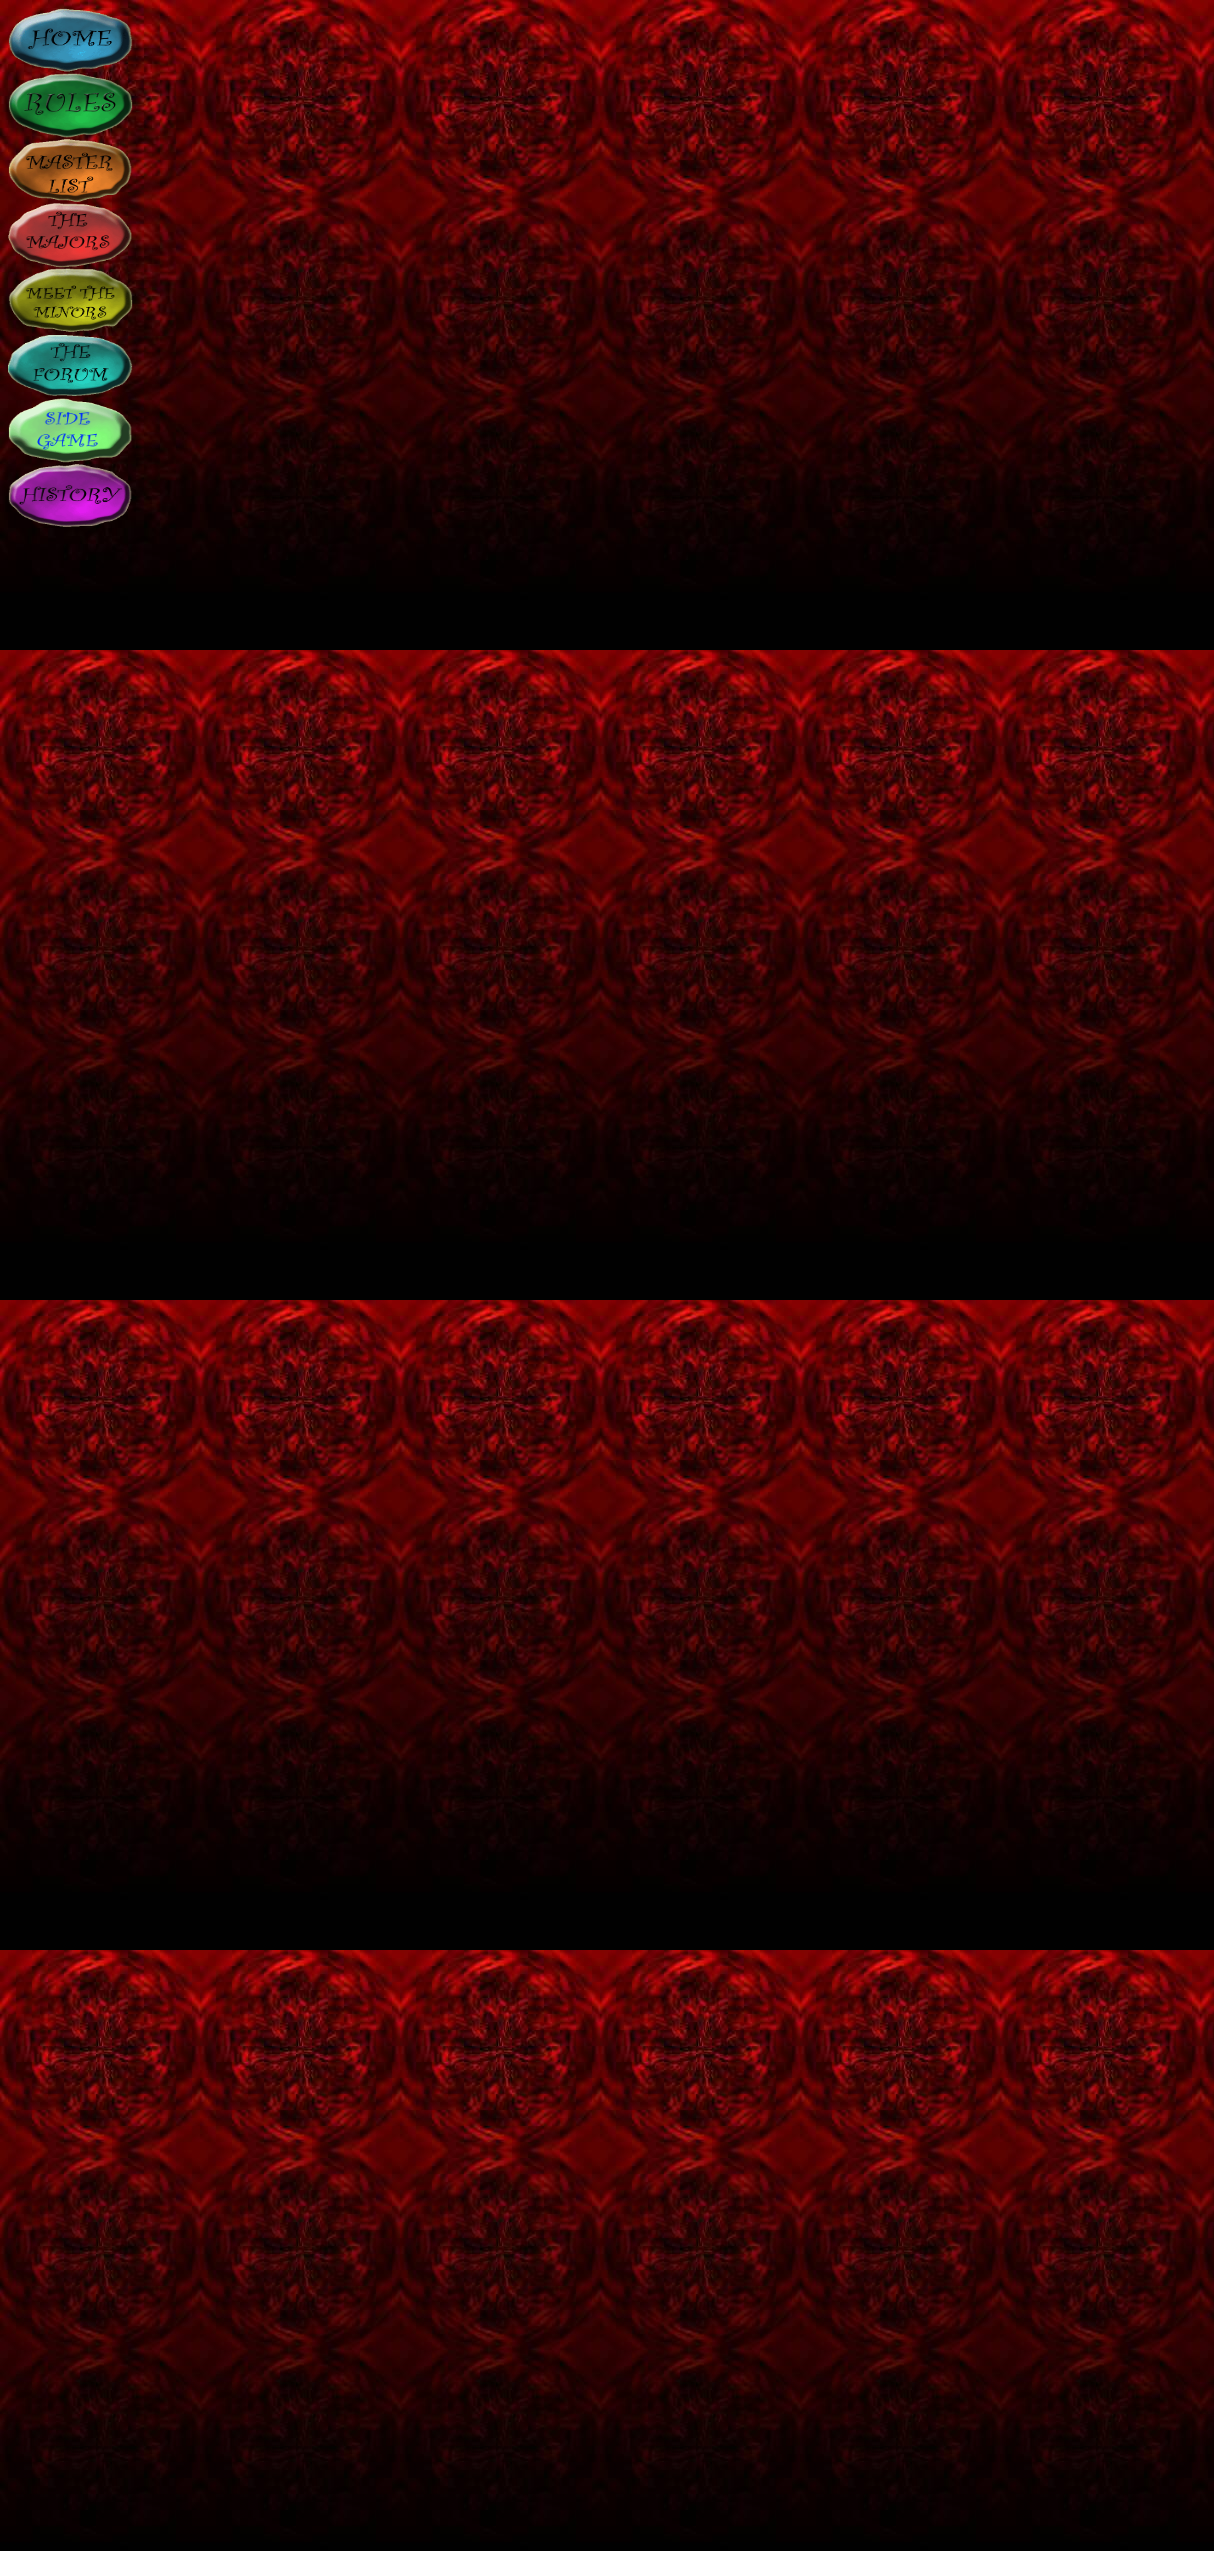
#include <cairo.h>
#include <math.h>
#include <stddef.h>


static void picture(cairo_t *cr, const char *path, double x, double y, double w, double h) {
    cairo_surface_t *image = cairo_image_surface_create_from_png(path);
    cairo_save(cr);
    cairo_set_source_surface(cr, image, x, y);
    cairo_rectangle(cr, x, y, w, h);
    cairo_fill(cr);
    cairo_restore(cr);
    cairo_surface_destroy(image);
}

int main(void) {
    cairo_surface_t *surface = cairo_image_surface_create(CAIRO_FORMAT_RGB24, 1214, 2551);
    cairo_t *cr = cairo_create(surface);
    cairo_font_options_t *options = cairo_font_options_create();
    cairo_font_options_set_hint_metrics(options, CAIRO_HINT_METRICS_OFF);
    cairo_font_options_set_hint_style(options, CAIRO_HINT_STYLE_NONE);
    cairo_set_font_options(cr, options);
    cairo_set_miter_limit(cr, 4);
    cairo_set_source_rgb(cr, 1, 1, 1);
    cairo_paint(cr);
    picture(cr, "img1.png", 0, 0, 1214, 2551);
    picture(cr, "img2.png", 8, 8, 125, 64);
    picture(cr, "img3.png", 8, 73, 125, 65);
    picture(cr, "img4.png", 8, 139, 124, 63);
    picture(cr, "img5.png", 8, 203, 124, 65);
    picture(cr, "img6.png", 8, 268, 125, 64);
    picture(cr, "img7.png", 8, 335, 125, 61);
    picture(cr, "img8.png", 8, 398, 124, 65);
    picture(cr, "img9.png", 8, 464, 124, 63);
    cairo_surface_write_to_png(surface, "page.png");
    cairo_font_options_destroy(options);
    cairo_destroy(cr);
    cairo_surface_destroy(surface);
    return 0;
}
